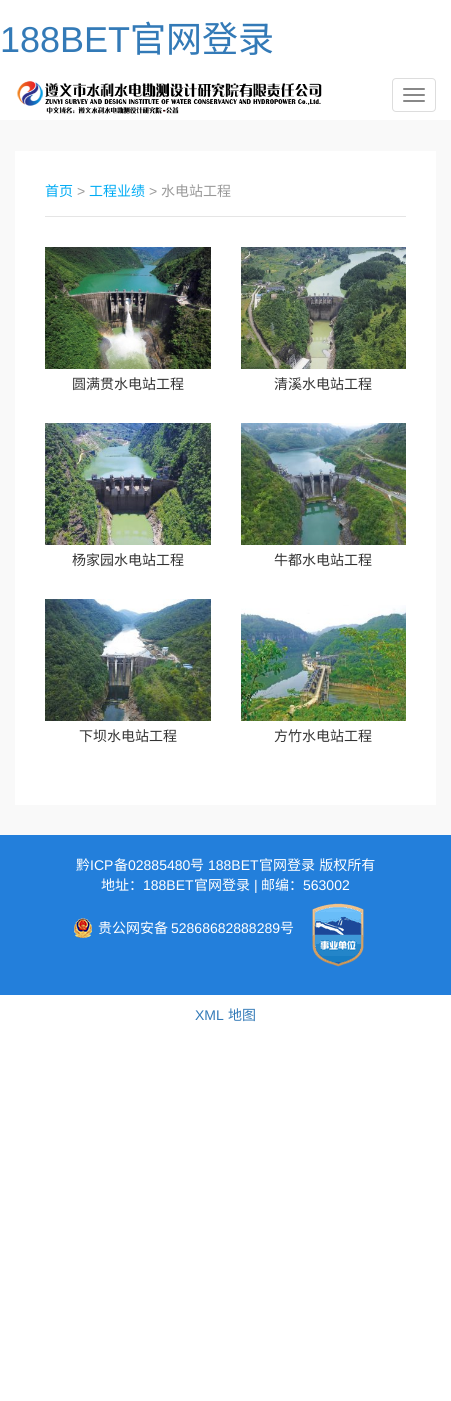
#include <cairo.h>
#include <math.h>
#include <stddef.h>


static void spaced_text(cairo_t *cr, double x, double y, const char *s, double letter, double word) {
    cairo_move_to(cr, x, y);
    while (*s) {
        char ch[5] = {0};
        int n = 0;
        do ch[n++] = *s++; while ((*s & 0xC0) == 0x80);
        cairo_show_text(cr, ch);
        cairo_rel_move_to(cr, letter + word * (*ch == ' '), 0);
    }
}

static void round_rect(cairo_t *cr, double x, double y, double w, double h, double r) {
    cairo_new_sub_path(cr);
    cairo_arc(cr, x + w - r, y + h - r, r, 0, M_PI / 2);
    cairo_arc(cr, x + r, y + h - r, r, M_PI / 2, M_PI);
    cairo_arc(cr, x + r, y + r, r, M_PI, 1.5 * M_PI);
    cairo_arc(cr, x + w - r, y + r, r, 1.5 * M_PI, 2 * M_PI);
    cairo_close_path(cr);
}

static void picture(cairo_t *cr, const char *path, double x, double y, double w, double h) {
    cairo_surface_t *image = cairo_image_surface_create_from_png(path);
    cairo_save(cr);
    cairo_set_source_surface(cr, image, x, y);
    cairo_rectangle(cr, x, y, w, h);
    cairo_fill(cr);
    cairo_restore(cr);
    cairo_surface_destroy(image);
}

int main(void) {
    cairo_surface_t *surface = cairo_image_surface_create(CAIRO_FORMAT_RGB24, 451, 1401);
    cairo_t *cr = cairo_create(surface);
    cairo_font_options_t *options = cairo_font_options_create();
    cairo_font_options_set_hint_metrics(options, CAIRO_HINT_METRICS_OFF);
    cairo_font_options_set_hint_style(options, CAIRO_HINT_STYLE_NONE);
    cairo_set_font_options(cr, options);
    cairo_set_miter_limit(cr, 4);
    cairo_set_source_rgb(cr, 1, 1, 1);
    cairo_paint(cr);
    cairo_select_font_face(cr, "Liberation Sans", CAIRO_FONT_SLANT_NORMAL, CAIRO_FONT_WEIGHT_NORMAL);
    cairo_set_font_size(cr, 36);
    cairo_set_source_rgb(cr, 0.2, 0.478, 0.718);
    cairo_move_to(cr, 0, 52);
    cairo_show_text(cr, "188BET");
    cairo_select_font_face(cr, "Noto Sans CJK SC", CAIRO_FONT_SLANT_NORMAL, CAIRO_FONT_WEIGHT_NORMAL);
    cairo_move_to(cr, 130, 52);
    cairo_show_text(cr, "官网登录");
    picture(cr, "img1.png", 17, 81, 305, 33);
    round_rect(cr, 392.5, 78.5, 43, 33, 3.5);
    cairo_set_source_rgb(cr, 0.867, 0.867, 0.867);
    cairo_set_line_width(cr, 1);
    cairo_stroke(cr);
    cairo_set_source_rgb(cr, 0.533, 0.533, 0.533);
    round_rect(cr, 403, 88, 22, 2, 1);
    cairo_fill(cr);
    round_rect(cr, 403, 94, 22, 2, 1);
    cairo_fill(cr);
    round_rect(cr, 403, 100, 22, 2, 1);
    cairo_fill(cr);
    cairo_set_source_rgb(cr, 0.976, 0.976, 0.976);
    cairo_rectangle(cr, 0, 120, 451, 715);
    cairo_fill(cr);
    cairo_set_source_rgb(cr, 1, 1, 1);
    cairo_rectangle(cr, 15, 151, 421, 654);
    cairo_fill(cr);
    cairo_set_source_rgb(cr, 0.898, 0.898, 0.898);
    cairo_rectangle(cr, 45, 216, 361, 1);
    cairo_fill(cr);
    cairo_set_font_size(cr, 14);
    cairo_set_source_rgb(cr, 0, 0.671, 0.957);
    cairo_move_to(cr, 45, 196);
    cairo_show_text(cr, "首页");
    cairo_select_font_face(cr, "Liberation Sans", CAIRO_FONT_SLANT_NORMAL, CAIRO_FONT_WEIGHT_NORMAL);
    cairo_set_source_rgb(cr, 0.6, 0.6, 0.6);
    cairo_move_to(cr, 77, 196);
    cairo_show_text(cr, ">");
    cairo_select_font_face(cr, "Noto Sans CJK SC", CAIRO_FONT_SLANT_NORMAL, CAIRO_FONT_WEIGHT_NORMAL);
    cairo_set_source_rgb(cr, 0, 0.671, 0.957);
    cairo_move_to(cr, 89, 196);
    cairo_show_text(cr, "工程业绩");
    cairo_select_font_face(cr, "Liberation Sans", CAIRO_FONT_SLANT_NORMAL, CAIRO_FONT_WEIGHT_NORMAL);
    cairo_set_source_rgb(cr, 0.6, 0.6, 0.6);
    cairo_move_to(cr, 149, 196);
    cairo_show_text(cr, ">");
    cairo_select_font_face(cr, "Noto Sans CJK SC", CAIRO_FONT_SLANT_NORMAL, CAIRO_FONT_WEIGHT_NORMAL);
    cairo_move_to(cr, 161, 196);
    cairo_show_text(cr, "水电站工程");
    picture(cr, "img2.png", 45, 247, 166, 122);
    cairo_set_source_rgb(cr, 0.2, 0.2, 0.2);
    cairo_move_to(cr, 72, 389);
    cairo_show_text(cr, "圆满贯水电站工程");
    picture(cr, "img3.png", 241, 247, 165, 122);
    cairo_move_to(cr, 274, 389);
    cairo_show_text(cr, "清溪水电站工程");
    picture(cr, "img4.png", 45, 423, 166, 122);
    cairo_move_to(cr, 72, 565);
    cairo_show_text(cr, "杨家园水电站工程");
    picture(cr, "img5.png", 241, 423, 165, 122);
    cairo_move_to(cr, 274, 565);
    cairo_show_text(cr, "牛都水电站工程");
    picture(cr, "img6.png", 45, 599, 166, 122);
    cairo_move_to(cr, 79, 741);
    cairo_show_text(cr, "下坝水电站工程");
    picture(cr, "img7.png", 241, 605, 165, 116);
    cairo_move_to(cr, 274, 741);
    cairo_show_text(cr, "方竹水电站工程");
    cairo_set_source_rgb(cr, 0.137, 0.498, 0.859);
    cairo_rectangle(cr, 0, 835, 451, 160);
    cairo_fill(cr);
    cairo_set_source_rgb(cr, 1, 1, 1);
    cairo_move_to(cr, 76, 870);
    cairo_show_text(cr, "黔");
    cairo_select_font_face(cr, "Liberation Sans", CAIRO_FONT_SLANT_NORMAL, CAIRO_FONT_WEIGHT_NORMAL);
    cairo_move_to(cr, 90, 870);
    cairo_show_text(cr, "ICP");
    cairo_select_font_face(cr, "Noto Sans CJK SC", CAIRO_FONT_SLANT_NORMAL, CAIRO_FONT_WEIGHT_NORMAL);
    cairo_move_to(cr, 114, 870);
    cairo_show_text(cr, "备");
    cairo_select_font_face(cr, "Liberation Sans", CAIRO_FONT_SLANT_NORMAL, CAIRO_FONT_WEIGHT_NORMAL);
    cairo_move_to(cr, 128, 870);
    cairo_show_text(cr, "02885480");
    cairo_select_font_face(cr, "Noto Sans CJK SC", CAIRO_FONT_SLANT_NORMAL, CAIRO_FONT_WEIGHT_NORMAL);
    cairo_move_to(cr, 190, 870);
    cairo_show_text(cr, "号");
    cairo_select_font_face(cr, "Liberation Sans", CAIRO_FONT_SLANT_NORMAL, CAIRO_FONT_WEIGHT_NORMAL);
    cairo_move_to(cr, 208, 870);
    cairo_show_text(cr, "188BET");
    cairo_select_font_face(cr, "Noto Sans CJK SC", CAIRO_FONT_SLANT_NORMAL, CAIRO_FONT_WEIGHT_NORMAL);
    spaced_text(cr, 259, 870, "官网登录 版权所有", 0, 1);
    cairo_move_to(cr, 101, 890);
    cairo_show_text(cr, "地址：");
    cairo_select_font_face(cr, "Liberation Sans", CAIRO_FONT_SLANT_NORMAL, CAIRO_FONT_WEIGHT_NORMAL);
    cairo_move_to(cr, 143, 890);
    cairo_show_text(cr, "188BET");
    cairo_select_font_face(cr, "Noto Sans CJK SC", CAIRO_FONT_SLANT_NORMAL, CAIRO_FONT_WEIGHT_NORMAL);
    cairo_move_to(cr, 194, 890);
    cairo_show_text(cr, "官网登录");
    cairo_select_font_face(cr, "Liberation Sans", CAIRO_FONT_SLANT_NORMAL, CAIRO_FONT_WEIGHT_NORMAL);
    cairo_move_to(cr, 254, 890);
    cairo_show_text(cr, "|");
    cairo_select_font_face(cr, "Noto Sans CJK SC", CAIRO_FONT_SLANT_NORMAL, CAIRO_FONT_WEIGHT_NORMAL);
    cairo_move_to(cr, 261, 890);
    cairo_show_text(cr, "邮编：");
    cairo_select_font_face(cr, "Liberation Sans", CAIRO_FONT_SLANT_NORMAL, CAIRO_FONT_WEIGHT_NORMAL);
    cairo_move_to(cr, 303, 890);
    cairo_show_text(cr, "563002");
    picture(cr, "img8.png", 74, 918, 18, 20);
    cairo_select_font_face(cr, "Noto Sans CJK SC", CAIRO_FONT_SLANT_NORMAL, CAIRO_FONT_WEIGHT_NORMAL);
    cairo_move_to(cr, 98, 933);
    cairo_show_text(cr, "贵公网安备");
    cairo_select_font_face(cr, "Liberation Sans", CAIRO_FONT_SLANT_NORMAL, CAIRO_FONT_WEIGHT_NORMAL);
    cairo_move_to(cr, 171, 933);
    cairo_show_text(cr, "52868682888289");
    cairo_select_font_face(cr, "Noto Sans CJK SC", CAIRO_FONT_SLANT_NORMAL, CAIRO_FONT_WEIGHT_NORMAL);
    cairo_move_to(cr, 280, 933);
    cairo_show_text(cr, "号");
    picture(cr, "img9.png", 312, 903, 52, 64);
    cairo_select_font_face(cr, "Liberation Sans", CAIRO_FONT_SLANT_NORMAL, CAIRO_FONT_WEIGHT_NORMAL);
    cairo_set_source_rgb(cr, 0.2, 0.478, 0.718);
    cairo_move_to(cr, 195, 1020);
    cairo_show_text(cr, "XML");
    cairo_select_font_face(cr, "Noto Sans CJK SC", CAIRO_FONT_SLANT_NORMAL, CAIRO_FONT_WEIGHT_NORMAL);
    cairo_move_to(cr, 228, 1020);
    cairo_show_text(cr, "地图");
    cairo_surface_write_to_png(surface, "page.png");
    cairo_font_options_destroy(options);
    cairo_destroy(cr);
    cairo_surface_destroy(surface);
    return 0;
}
